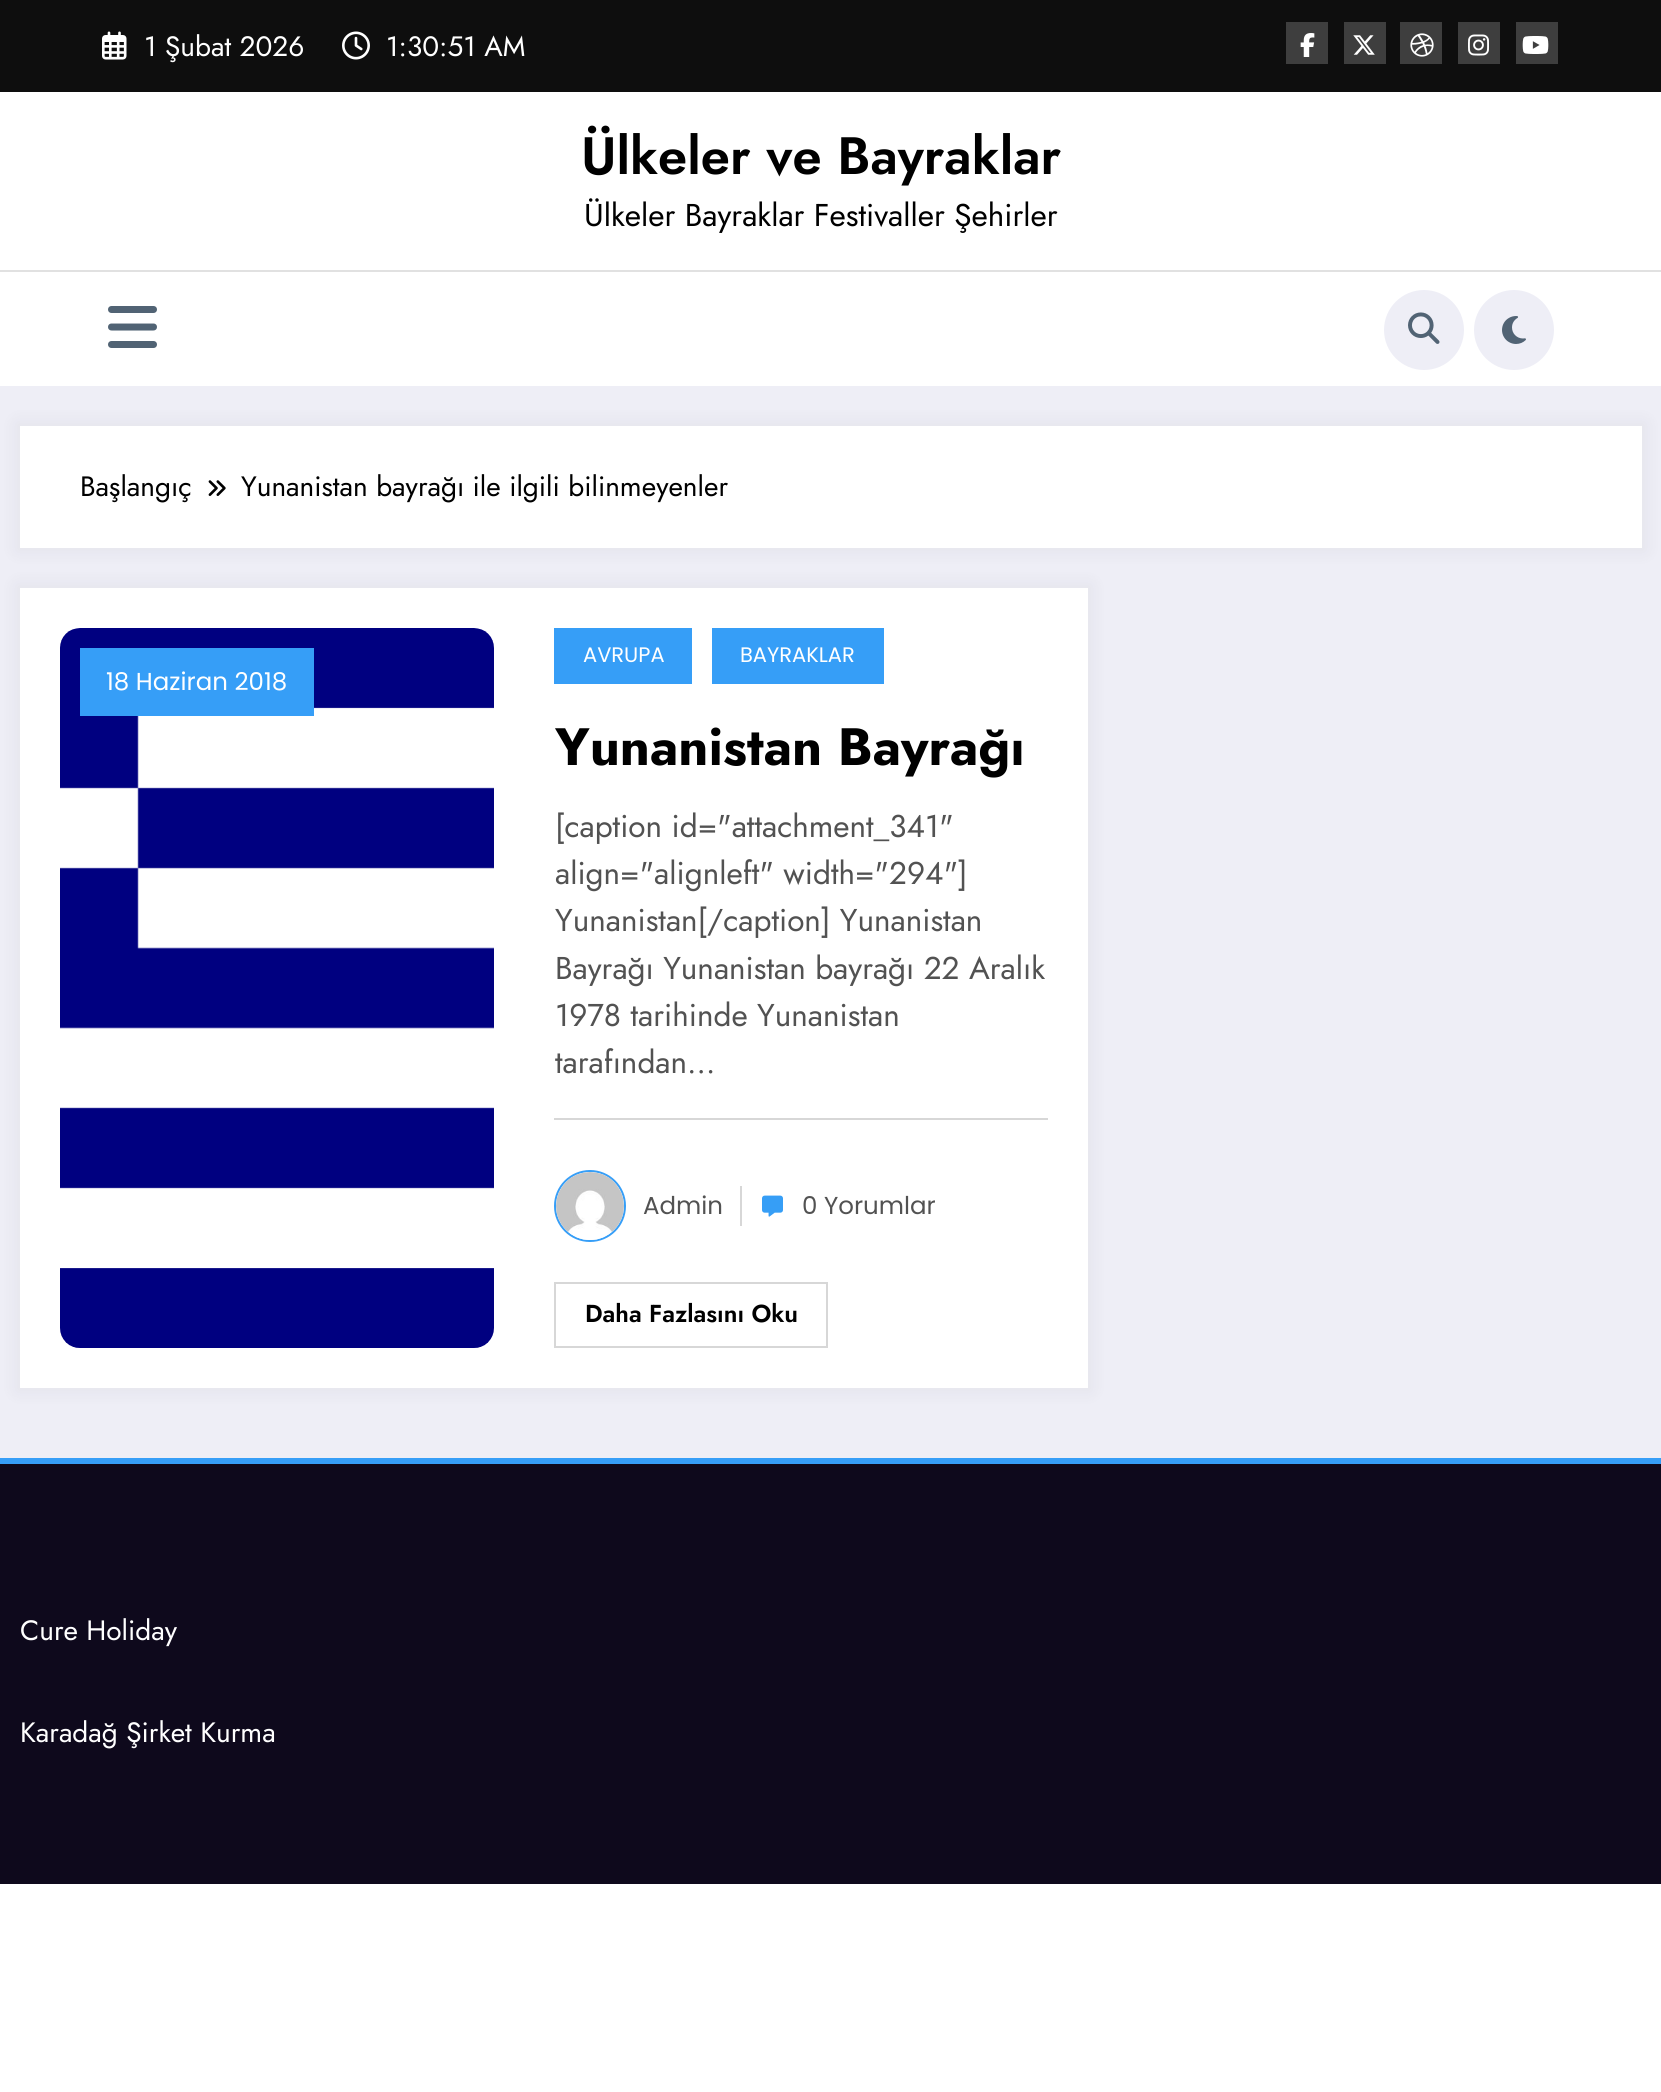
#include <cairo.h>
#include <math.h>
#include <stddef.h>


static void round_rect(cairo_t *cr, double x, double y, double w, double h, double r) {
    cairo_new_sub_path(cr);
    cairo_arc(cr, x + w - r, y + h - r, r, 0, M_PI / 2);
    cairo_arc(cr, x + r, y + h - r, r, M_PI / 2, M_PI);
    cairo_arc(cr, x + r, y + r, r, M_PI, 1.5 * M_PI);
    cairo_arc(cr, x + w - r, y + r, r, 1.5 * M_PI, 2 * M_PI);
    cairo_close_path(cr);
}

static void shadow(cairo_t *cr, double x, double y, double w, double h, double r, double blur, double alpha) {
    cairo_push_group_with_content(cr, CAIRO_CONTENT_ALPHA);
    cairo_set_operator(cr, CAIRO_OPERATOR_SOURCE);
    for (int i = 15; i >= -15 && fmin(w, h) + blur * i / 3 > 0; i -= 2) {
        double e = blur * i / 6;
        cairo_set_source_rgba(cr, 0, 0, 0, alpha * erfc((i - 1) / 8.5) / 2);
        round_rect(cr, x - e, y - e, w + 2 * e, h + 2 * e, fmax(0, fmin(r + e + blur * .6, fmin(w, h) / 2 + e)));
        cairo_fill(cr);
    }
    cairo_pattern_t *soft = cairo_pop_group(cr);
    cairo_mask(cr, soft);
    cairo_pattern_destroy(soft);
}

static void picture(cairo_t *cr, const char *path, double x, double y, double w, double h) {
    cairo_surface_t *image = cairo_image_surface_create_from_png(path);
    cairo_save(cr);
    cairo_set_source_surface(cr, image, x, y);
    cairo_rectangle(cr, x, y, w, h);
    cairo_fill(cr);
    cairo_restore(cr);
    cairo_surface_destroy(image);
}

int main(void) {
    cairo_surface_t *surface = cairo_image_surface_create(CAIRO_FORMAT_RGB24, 1661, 2092);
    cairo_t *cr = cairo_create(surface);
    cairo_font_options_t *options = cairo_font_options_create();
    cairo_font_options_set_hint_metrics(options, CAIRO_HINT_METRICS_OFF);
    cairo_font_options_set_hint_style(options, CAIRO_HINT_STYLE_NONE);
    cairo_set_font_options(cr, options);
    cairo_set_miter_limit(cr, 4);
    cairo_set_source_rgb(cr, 1, 1, 1);
    cairo_paint(cr);
    cairo_set_source_rgb(cr, 0.933, 0.933, 0.961);
    cairo_rectangle(cr, 0, 386, 1661, 1072);
    cairo_fill(cr);
    cairo_set_source_rgb(cr, 0.055, 0.055, 0.055);
    cairo_rectangle(cr, 0, 0, 1661, 92);
    cairo_fill(cr);
    picture(cr, "img1.png", 102, 31, 25, 29);
    cairo_select_font_face(cr, "Jost", CAIRO_FONT_SLANT_NORMAL, CAIRO_FONT_WEIGHT_NORMAL);
    cairo_set_font_size(cr, 28);
    cairo_set_source_rgb(cr, 1, 1, 1);
    cairo_move_to(cr, 144, 56);
    cairo_show_text(cr, "1 Şubat 2026");
    picture(cr, "img2.png", 342, 31, 28, 29);
    cairo_move_to(cr, 386, 56);
    cairo_show_text(cr, "1:30:51 AM");
    cairo_set_source_rgb(cr, 0.243, 0.243, 0.243);
    cairo_rectangle(cr, 1286, 22, 42, 42);
    cairo_fill(cr);
    picture(cr, "img3.png", 1300, 33, 15, 24);
    cairo_rectangle(cr, 1344, 22, 42, 42);
    cairo_fill(cr);
    picture(cr, "img4.png", 1353, 35, 22, 20);
    cairo_rectangle(cr, 1400, 22, 42, 42);
    cairo_fill(cr);
    picture(cr, "img5.png", 1410, 33, 24, 24);
    cairo_rectangle(cr, 1458, 22, 42, 42);
    cairo_fill(cr);
    picture(cr, "img6.png", 1468, 34, 21, 22);
    cairo_rectangle(cr, 1516, 22, 42, 42);
    cairo_fill(cr);
    picture(cr, "img7.png", 1522, 36, 27, 18);
    cairo_select_font_face(cr, "Jost SemiBold", CAIRO_FONT_SLANT_NORMAL, CAIRO_FONT_WEIGHT_NORMAL);
    cairo_set_font_size(cr, 52.5);
    cairo_set_source_rgb(cr, 0, 0, 0);
    cairo_move_to(cr, 581, 174);
    cairo_show_text(cr, "Ülkeler ve Bayraklar");
    cairo_select_font_face(cr, "Jost", CAIRO_FONT_SLANT_NORMAL, CAIRO_FONT_WEIGHT_NORMAL);
    cairo_set_font_size(cr, 31.5);
    cairo_move_to(cr, 584, 226);
    cairo_show_text(cr, "Ülkeler Bayraklar Festivaller Şehirler");
    cairo_set_source_rgb(cr, 0.882, 0.882, 0.882);
    cairo_rectangle(cr, 0, 270, 1661, 2);
    cairo_fill(cr);
    picture(cr, "img8.png", 108, 306, 49, 42);
    cairo_set_source_rgb(cr, 0.933, 0.933, 0.961);
    cairo_arc(cr, 1424, 330, 40, 0, 2 * M_PI);
    cairo_fill(cr);
    picture(cr, "img9.png", 1408, 312, 32, 32);
    cairo_arc(cr, 1514, 330, 40, 0, 2 * M_PI);
    cairo_fill(cr);
    picture(cr, "img10.png", 1502, 316, 24, 28);
    cairo_set_source_rgb(cr, 0.09, 0.09, 0.137);
    shadow(cr, 16, 422, 1630, 130, 0, 8, 0.05);
    cairo_set_source_rgb(cr, 1, 1, 1);
    cairo_rectangle(cr, 20, 426, 1622, 122);
    cairo_fill(cr);
    cairo_set_font_size(cr, 28);
    cairo_set_source_rgb(cr, 0, 0, 0);
    cairo_move_to(cr, 80, 496);
    cairo_show_text(cr, "Başlangıç");
    picture(cr, "img11.png", 208, 480, 18, 16);
    cairo_move_to(cr, 241, 496);
    cairo_show_text(cr, "Yunanistan bayrağı ile ilgili bilinmeyenler");
    cairo_set_source_rgb(cr, 0.09, 0.09, 0.137);
    shadow(cr, 16, 584, 1076, 808, 0, 8, 0.05);
    cairo_set_source_rgb(cr, 1, 1, 1);
    cairo_rectangle(cr, 20, 588, 1068, 800);
    cairo_fill(cr);
    picture(cr, "img12.png", 60, 628, 434, 720);
    cairo_set_source_rgb(cr, 0.212, 0.62, 0.965);
    cairo_rectangle(cr, 80, 648, 234, 68);
    cairo_fill(cr);
    cairo_select_font_face(cr, "Poppins", CAIRO_FONT_SLANT_NORMAL, CAIRO_FONT_WEIGHT_NORMAL);
    cairo_set_font_size(cr, 24.5);
    cairo_set_source_rgb(cr, 1, 1, 1);
    cairo_move_to(cr, 106, 690);
    cairo_show_text(cr, "18 Haziran 2018");
    cairo_set_source_rgb(cr, 0.212, 0.62, 0.965);
    cairo_rectangle(cr, 554, 628, 138, 56);
    cairo_fill(cr);
    cairo_set_font_size(cr, 21);
    cairo_set_source_rgb(cr, 1, 1, 1);
    cairo_move_to(cr, 583, 662);
    cairo_show_text(cr, "AVRUPA");
    cairo_set_source_rgb(cr, 0.212, 0.62, 0.965);
    cairo_rectangle(cr, 712, 628, 172, 56);
    cairo_fill(cr);
    cairo_set_source_rgb(cr, 1, 1, 1);
    cairo_move_to(cr, 740, 662);
    cairo_show_text(cr, "BAYRAKLAR");
    cairo_select_font_face(cr, "Jost", CAIRO_FONT_SLANT_NORMAL, CAIRO_FONT_WEIGHT_BOLD);
    cairo_set_font_size(cr, 52.5);
    cairo_set_source_rgb(cr, 0, 0, 0);
    cairo_move_to(cr, 555, 765);
    cairo_show_text(cr, "Yunanistan Bayrağı");
    cairo_set_source_rgb(cr, 0.843, 0.843, 0.843);
    cairo_rectangle(cr, 554, 1118, 494, 2);
    cairo_fill(cr);
    cairo_select_font_face(cr, "Jost", CAIRO_FONT_SLANT_NORMAL, CAIRO_FONT_WEIGHT_NORMAL);
    cairo_set_font_size(cr, 31.5);
    cairo_set_source_rgb(cr, 0.322, 0.322, 0.322);
    cairo_move_to(cr, 555, 837);
    cairo_show_text(cr, "[caption id=\"attachment_341\"");
    cairo_move_to(cr, 555, 884);
    cairo_show_text(cr, "align=\"alignleft\" width=\"294\"]");
    cairo_move_to(cr, 555, 931);
    cairo_show_text(cr, "Yunanistan[/caption] Yunanistan");
    cairo_move_to(cr, 555, 979);
    cairo_show_text(cr, "Bayrağı Yunanistan bayrağı 22 Aralık");
    cairo_move_to(cr, 555, 1026);
    cairo_show_text(cr, "1978 tarihinde Yunanistan");
    cairo_move_to(cr, 555, 1073);
    cairo_show_text(cr, "tarafından…");
    cairo_new_path(cr);
    cairo_arc(cr, 590, 1206, 35, 0, 2 * M_PI);
    cairo_set_source_rgb(cr, 0.212, 0.62, 0.965);
    cairo_stroke(cr);
    picture(cr, "img13.png", 556, 1172, 68, 68);
    cairo_select_font_face(cr, "Poppins", CAIRO_FONT_SLANT_NORMAL, CAIRO_FONT_WEIGHT_NORMAL);
    cairo_set_font_size(cr, 24.5);
    cairo_set_source_rgb(cr, 0.322, 0.322, 0.322);
    cairo_move_to(cr, 643, 1214);
    cairo_show_text(cr, "Admin");
    cairo_set_source_rgb(cr, 0.843, 0.843, 0.843);
    cairo_rectangle(cr, 740, 1186, 2, 40);
    cairo_fill(cr);
    picture(cr, "img14.png", 762, 1195, 21, 22);
    cairo_set_source_rgb(cr, 0.322, 0.322, 0.322);
    cairo_move_to(cr, 802, 1214);
    cairo_show_text(cr, "0 Yorumlar");
    cairo_rectangle(cr, 555, 1283, 272, 64);
    cairo_set_source_rgb(cr, 0.843, 0.843, 0.843);
    cairo_stroke(cr);
    cairo_select_font_face(cr, "Jost SemiBold", CAIRO_FONT_SLANT_NORMAL, CAIRO_FONT_WEIGHT_NORMAL);
    cairo_set_source_rgb(cr, 0, 0, 0);
    cairo_move_to(cr, 585, 1322);
    cairo_show_text(cr, "Daha Fazlasını Oku");
    cairo_set_source_rgb(cr, 0.212, 0.62, 0.965);
    cairo_rectangle(cr, 0, 1458, 1661, 6);
    cairo_fill(cr);
    cairo_set_source_rgb(cr, 0.055, 0.039, 0.11);
    cairo_rectangle(cr, 0, 1464, 1661, 420);
    cairo_fill(cr);
    cairo_select_font_face(cr, "Jost", CAIRO_FONT_SLANT_NORMAL, CAIRO_FONT_WEIGHT_NORMAL);
    cairo_set_font_size(cr, 28);
    cairo_set_source_rgb(cr, 1, 1, 1);
    cairo_move_to(cr, 20, 1640);
    cairo_show_text(cr, "Cure Holiday");
    cairo_move_to(cr, 20, 1742);
    cairo_show_text(cr, "Karadağ Şirket Kurma");
    cairo_surface_write_to_png(surface, "page.png");
    cairo_font_options_destroy(options);
    cairo_destroy(cr);
    cairo_surface_destroy(surface);
    return 0;
}
